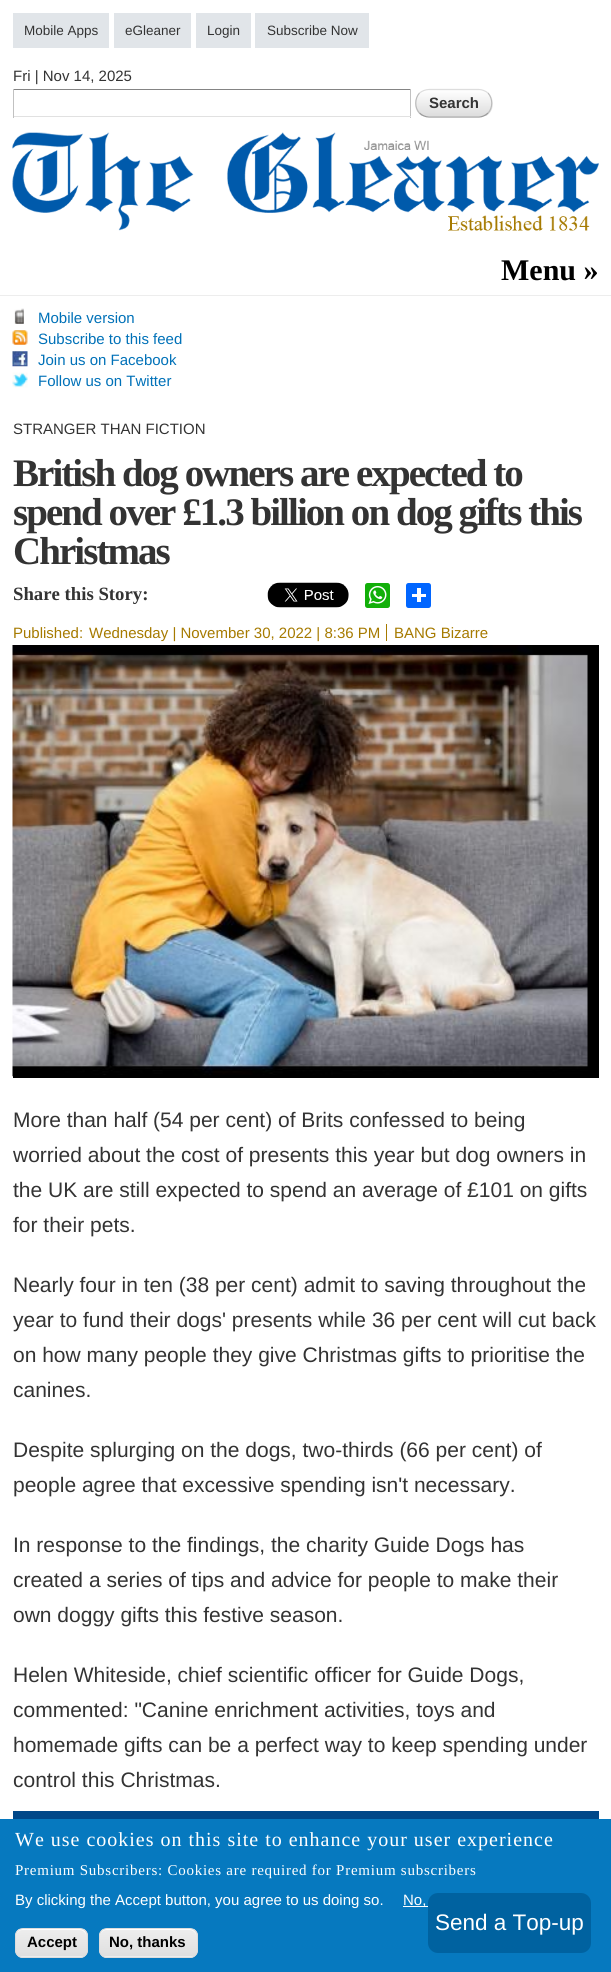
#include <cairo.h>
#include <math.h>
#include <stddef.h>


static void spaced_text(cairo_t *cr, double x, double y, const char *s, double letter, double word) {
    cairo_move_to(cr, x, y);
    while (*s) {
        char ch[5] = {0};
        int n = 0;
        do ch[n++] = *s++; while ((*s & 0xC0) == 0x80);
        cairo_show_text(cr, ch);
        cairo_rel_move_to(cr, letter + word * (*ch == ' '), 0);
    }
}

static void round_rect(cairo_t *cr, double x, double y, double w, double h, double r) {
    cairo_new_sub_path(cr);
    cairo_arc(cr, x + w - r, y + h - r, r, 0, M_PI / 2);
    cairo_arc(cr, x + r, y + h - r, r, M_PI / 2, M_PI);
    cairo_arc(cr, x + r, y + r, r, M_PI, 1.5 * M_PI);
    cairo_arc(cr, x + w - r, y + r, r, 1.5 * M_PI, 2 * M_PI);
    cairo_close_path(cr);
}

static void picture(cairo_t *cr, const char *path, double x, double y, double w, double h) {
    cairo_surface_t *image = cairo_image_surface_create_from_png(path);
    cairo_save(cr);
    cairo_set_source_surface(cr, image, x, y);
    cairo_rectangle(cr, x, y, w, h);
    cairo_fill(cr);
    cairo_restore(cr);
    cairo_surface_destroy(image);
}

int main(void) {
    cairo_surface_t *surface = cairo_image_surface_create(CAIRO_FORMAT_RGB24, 611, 1972);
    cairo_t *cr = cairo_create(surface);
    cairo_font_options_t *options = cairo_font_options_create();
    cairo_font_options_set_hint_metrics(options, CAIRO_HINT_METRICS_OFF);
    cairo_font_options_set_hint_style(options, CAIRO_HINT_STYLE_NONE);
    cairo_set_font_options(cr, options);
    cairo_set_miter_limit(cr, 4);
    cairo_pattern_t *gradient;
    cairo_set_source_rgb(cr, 1, 1, 1);
    cairo_paint(cr);
    cairo_set_source_rgb(cr, 0.882, 0.898, 0.914);
    cairo_rectangle(cr, 13, 13, 96, 35);
    cairo_fill(cr);
    cairo_select_font_face(cr, "Liberation Sans", CAIRO_FONT_SLANT_NORMAL, CAIRO_FONT_WEIGHT_NORMAL);
    cairo_set_font_size(cr, 13.5);
    cairo_set_source_rgb(cr, 0.2, 0.2, 0.2);
    cairo_move_to(cr, 24, 35);
    cairo_show_text(cr, "Mobile Apps");
    cairo_set_source_rgb(cr, 0.882, 0.898, 0.914);
    cairo_rectangle(cr, 114, 13, 77, 35);
    cairo_fill(cr);
    cairo_set_source_rgb(cr, 0.2, 0.2, 0.2);
    cairo_move_to(cr, 125, 35);
    cairo_show_text(cr, "eGleaner");
    cairo_set_source_rgb(cr, 0.882, 0.898, 0.914);
    cairo_rectangle(cr, 196, 13, 55, 35);
    cairo_fill(cr);
    cairo_set_source_rgb(cr, 0.2, 0.2, 0.2);
    cairo_move_to(cr, 207, 35);
    cairo_show_text(cr, "Login");
    cairo_set_source_rgb(cr, 0.882, 0.898, 0.914);
    cairo_rectangle(cr, 255, 13, 114, 35);
    cairo_fill(cr);
    cairo_set_source_rgb(cr, 0.2, 0.2, 0.2);
    cairo_move_to(cr, 267, 35);
    cairo_show_text(cr, "Subscribe Now");
    cairo_set_font_size(cr, 15);
    cairo_move_to(cr, 13, 81);
    cairo_show_text(cr, "Fri | Nov 14, 2025");
    cairo_set_source_rgb(cr, 0.518, 0.518, 0.518);
    cairo_rectangle(cr, 13, 89, 398, 1);
    cairo_fill(cr);
    cairo_set_source_rgb(cr, 0.757, 0.757, 0.757);
    cairo_rectangle(cr, 410, 89, 1, 29);
    cairo_fill(cr);
    cairo_set_source_rgb(cr, 0.882, 0.882, 0.882);
    cairo_rectangle(cr, 13, 116, 398, 1);
    cairo_fill(cr);
    cairo_set_source_rgb(cr, 0.757, 0.757, 0.757);
    cairo_rectangle(cr, 13, 89, 1, 29);
    cairo_fill(cr);
    cairo_save(cr);
    round_rect(cr, 415, 89, 78, 29, 14);
    cairo_clip(cr);
    gradient = cairo_pattern_create_linear(416, 90, 416, 116);
    cairo_pattern_add_color_stop_rgba(gradient, 0, 1, 1, 1, 1);
    cairo_pattern_add_color_stop_rgba(gradient, 1, 0.867, 0.867, 0.867, 1);
    cairo_set_source(cr, gradient);
    cairo_pattern_destroy(gradient);
    cairo_rectangle(cr, 415, 90, 78, 26);
    cairo_fill(cr);
    cairo_restore(cr);
    cairo_new_path(cr);
    cairo_move_to(cr, 419.5, 93);
    cairo_curve_to(cr, 422, 91, 425.5, 89.5, 429, 89.5);
    cairo_line_to(cr, 479, 89.5);
    cairo_curve_to(cr, 482, 89.5, 485.5, 91, 488, 93);
    cairo_set_source_rgb(cr, 0.867, 0.867, 0.867);
    cairo_set_line_width(cr, 1.2);
    cairo_stroke(cr);
    cairo_new_path(cr);
    cairo_move_to(cr, 488, 93);
    cairo_curve_to(cr, 493, 98.5, 493, 108, 488, 113);
    cairo_set_source_rgb(cr, 0.733, 0.733, 0.733);
    cairo_stroke(cr);
    cairo_new_path(cr);
    cairo_move_to(cr, 488, 113);
    cairo_curve_to(cr, 485.5, 115.5, 482, 117, 479, 117);
    cairo_line_to(cr, 429, 117);
    cairo_curve_to(cr, 425.5, 117, 422, 115.5, 419.5, 113);
    cairo_set_source_rgb(cr, 0.6, 0.6, 0.6);
    cairo_stroke(cr);
    cairo_new_path(cr);
    cairo_move_to(cr, 419.5, 113);
    cairo_curve_to(cr, 414.5, 108, 414.5, 98.5, 419.5, 93);
    cairo_set_source_rgb(cr, 0.733, 0.733, 0.733);
    cairo_stroke(cr);
    cairo_select_font_face(cr, "Liberation Sans", CAIRO_FONT_SLANT_NORMAL, CAIRO_FONT_WEIGHT_BOLD);
    cairo_set_source_rgb(cr, 0.2, 0.2, 0.2);
    cairo_move_to(cr, 429, 108);
    cairo_show_text(cr, "Search");
    picture(cr, "img1.png", 12, 132, 587, 99);
    cairo_select_font_face(cr, "Liberation Serif", CAIRO_FONT_SLANT_NORMAL, CAIRO_FONT_WEIGHT_BOLD);
    cairo_set_font_size(cr, 30);
    cairo_set_source_rgb(cr, 0, 0, 0);
    cairo_move_to(cr, 501, 280);
    cairo_show_text(cr, "Menu »");
    cairo_set_source_rgb(cr, 0.929, 0.929, 0.929);
    cairo_rectangle(cr, 0, 295, 611, 1);
    cairo_fill(cr);
    picture(cr, "img2.png", 14, 308, 10, 16);
    cairo_select_font_face(cr, "Liberation Sans", CAIRO_FONT_SLANT_NORMAL, CAIRO_FONT_WEIGHT_NORMAL);
    cairo_set_font_size(cr, 15);
    cairo_set_source_rgb(cr, 0, 0.443, 0.722);
    cairo_move_to(cr, 38, 323);
    cairo_show_text(cr, "Mobile version");
    picture(cr, "img3.png", 12, 330, 16, 15);
    cairo_move_to(cr, 38, 344);
    cairo_show_text(cr, "Subscribe to this feed");
    picture(cr, "img4.png", 12, 351, 16, 16);
    cairo_move_to(cr, 38, 365);
    cairo_show_text(cr, "Join us on Facebook");
    picture(cr, "img5.png", 12, 372, 16, 16);
    cairo_move_to(cr, 38, 386);
    cairo_show_text(cr, "Follow us on Twitter");
    cairo_set_source_rgb(cr, 0.2, 0.2, 0.2);
    cairo_move_to(cr, 13, 434);
    cairo_show_text(cr, "STRANGER THAN FICTION");
    cairo_select_font_face(cr, "Liberation Serif", CAIRO_FONT_SLANT_NORMAL, CAIRO_FONT_WEIGHT_BOLD);
    cairo_set_font_size(cr, 39);
    spaced_text(cr, 13, 486, "British dog owners are expected to", -1.95, 0);
    spaced_text(cr, 13, 525, "spend over £1.3 billion on dog gifts this", -1.95, 0);
    spaced_text(cr, 13, 564, "Christmas", -1.95, 0);
    cairo_set_font_size(cr, 18.75);
    cairo_move_to(cr, 13, 600);
    cairo_show_text(cr, "Share this Story:");
    picture(cr, "img6.png", 267, 582, 82, 26);
    cairo_set_source_rgb(cr, 0.071, 0.686, 0.039);
    round_rect(cr, 365, 583, 25, 25, 2.5);
    cairo_fill(cr);
    picture(cr, "img7.png", 368, 585, 19, 19);
    cairo_set_source_rgb(cr, 0.004, 0.4, 1);
    round_rect(cr, 406, 583, 25, 25, 2.5);
    cairo_fill(cr);
    cairo_set_source_rgb(cr, 1, 1, 1);
    cairo_rectangle(cr, 417, 588, 4, 14);
    cairo_fill(cr);
    cairo_rectangle(cr, 412, 594, 14, 3);
    cairo_fill(cr);
    cairo_select_font_face(cr, "Liberation Sans", CAIRO_FONT_SLANT_NORMAL, CAIRO_FONT_WEIGHT_NORMAL);
    cairo_set_font_size(cr, 15);
    cairo_set_source_rgb(cr, 0.651, 0.478, 0);
    cairo_move_to(cr, 13, 638);
    cairo_show_text(cr, "Published:");
    cairo_move_to(cr, 89, 638);
    cairo_show_text(cr, "Wednesday | November 30, 2022 | 8:36 PM");
    cairo_move_to(cr, 394, 638);
    cairo_show_text(cr, "BANG Bizarre");
    cairo_rectangle(cr, 386, 624, 1, 17);
    cairo_fill(cr);
    cairo_set_source_rgb(cr, 0, 0, 0);
    cairo_rectangle(cr, 13, 645, 586, 433);
    cairo_fill(cr);
    picture(cr, "img8.png", 12, 645, 576, 432);
    cairo_set_font_size(cr, 21);
    cairo_set_source_rgb(cr, 0.2, 0.2, 0.2);
    cairo_move_to(cr, 13, 1127);
    cairo_show_text(cr, "More than half (54 per cent) of Brits confessed to being");
    cairo_move_to(cr, 13, 1162);
    cairo_show_text(cr, "worried about the cost of presents this year but dog owners in");
    cairo_move_to(cr, 13, 1197);
    cairo_show_text(cr, "the UK are still expected to spend an average of £101 on gifts");
    cairo_move_to(cr, 13, 1232);
    cairo_show_text(cr, "for their pets.");
    cairo_move_to(cr, 13, 1292);
    cairo_show_text(cr, "Nearly four in ten (38 per cent) admit to saving throughout the");
    cairo_move_to(cr, 13, 1327);
    cairo_show_text(cr, "year to fund their dogs' presents while 36 per cent will cut back");
    cairo_move_to(cr, 13, 1362);
    cairo_show_text(cr, "on how many people they give Christmas gifts to prioritise the");
    cairo_move_to(cr, 13, 1397);
    cairo_show_text(cr, "canines.");
    cairo_move_to(cr, 13, 1457);
    cairo_show_text(cr, "Despite splurging on the dogs, two-thirds (66 per cent) of");
    cairo_move_to(cr, 13, 1492);
    cairo_show_text(cr, "people agree that excessive spending isn't necessary.");
    cairo_move_to(cr, 13, 1552);
    cairo_show_text(cr, "In response to the findings, the charity Guide Dogs has");
    cairo_move_to(cr, 13, 1587);
    cairo_show_text(cr, "created a series of tips and advice for people to make their");
    cairo_move_to(cr, 13, 1622);
    cairo_show_text(cr, "own doggy gifts this festive season.");
    cairo_move_to(cr, 13, 1682);
    cairo_show_text(cr, "Helen Whiteside, chief scientific officer for Guide Dogs,");
    cairo_move_to(cr, 13, 1717);
    cairo_show_text(cr, "commented: \"Canine enrichment activities, toys and");
    cairo_move_to(cr, 13, 1752);
    cairo_show_text(cr, "homemade gifts can be a perfect way to keep spending under");
    cairo_move_to(cr, 13, 1787);
    cairo_show_text(cr, "control this Christmas.");
    cairo_set_source_rgb(cr, 0.004, 0.282, 0.537);
    cairo_rectangle(cr, 13, 1811, 586, 8);
    cairo_fill(cr);
    cairo_set_source_rgb(cr, 0.027, 0.475, 0.749);
    cairo_rectangle(cr, 0, 1819, 611, 153);
    cairo_fill(cr);
    cairo_select_font_face(cr, "Liberation Serif", CAIRO_FONT_SLANT_NORMAL, CAIRO_FONT_WEIGHT_NORMAL);
    cairo_set_font_size(cr, 20);
    cairo_set_source_rgb(cr, 1, 1, 1);
    spaced_text(cr, 15, 1846, "We use cookies on this site to enhance your user experience", 1, 0);
    cairo_set_font_size(cr, 15);
    spaced_text(cr, 15, 1875, "Premium Subscribers: Cookies are required for Premium subscribers", 0.75, 0);
    cairo_select_font_face(cr, "Liberation Sans", CAIRO_FONT_SLANT_NORMAL, CAIRO_FONT_WEIGHT_NORMAL);
    cairo_move_to(cr, 15, 1905);
    cairo_show_text(cr, "By clicking the Accept button, you agree to us doing so.");
    cairo_rectangle(cr, 403, 1906, 25, 1);
    cairo_fill(cr);
    cairo_move_to(cr, 403, 1905);
    cairo_show_text(cr, "No,");
    cairo_save(cr);
    round_rect(cr, 15, 1928, 73, 30, 8);
    cairo_clip(cr);
    gradient = cairo_pattern_create_linear(51, 1929, 51, 1956);
    cairo_pattern_add_color_stop_rgba(gradient, 0.05, 0.929, 0.929, 0.929, 1);
    cairo_pattern_add_color_stop_rgba(gradient, 1, 0.875, 0.875, 0.875, 1);
    cairo_set_source(cr, gradient);
    cairo_pattern_destroy(gradient);
    cairo_rectangle(cr, 15, 1929, 73, 27);
    cairo_fill(cr);
    gradient = cairo_pattern_create_linear(51, 1956, 51, 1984);
    cairo_pattern_add_color_stop_rgba(gradient, 0.05, 0.929, 0.929, 0.929, 1);
    cairo_pattern_add_color_stop_rgba(gradient, 1, 0.875, 0.875, 0.875, 1);
    cairo_set_source(cr, gradient);
    cairo_pattern_destroy(gradient);
    cairo_rectangle(cr, 15, 1956, 73, 2);
    cairo_fill(cr);
    cairo_restore(cr);
    cairo_new_path(cr);
    cairo_move_to(cr, 22, 1930);
    cairo_line_to(cr, 80, 1930);
    cairo_curve_to(cr, 83, 1930, 86, 1933, 86, 1936);
    cairo_curve_to(cr, 86, 1927, 77, 1929, 70, 1929);
    cairo_line_to(cr, 32, 1929);
    cairo_curve_to(cr, 25, 1929, 16, 1927, 16, 1936);
    cairo_curve_to(cr, 16, 1933, 19, 1930, 22, 1930);
    cairo_close_path(cr);
    cairo_fill(cr);
    round_rect(cr, 15.5, 1928.5, 72, 29, 7.5);
    cairo_set_source_rgb(cr, 0.863, 0.863, 0.863);
    cairo_set_line_width(cr, 1);
    cairo_stroke(cr);
    cairo_select_font_face(cr, "Liberation Sans", CAIRO_FONT_SLANT_NORMAL, CAIRO_FONT_WEIGHT_BOLD);
    cairo_set_source_rgb(cr, 0, 0, 0);
    cairo_move_to(cr, 27, 1947);
    cairo_show_text(cr, "Accept");
    cairo_save(cr);
    round_rect(cr, 99, 1928, 99, 30, 8);
    cairo_clip(cr);
    gradient = cairo_pattern_create_linear(148, 1929, 148, 1956);
    cairo_pattern_add_color_stop_rgba(gradient, 0.05, 0.929, 0.929, 0.929, 1);
    cairo_pattern_add_color_stop_rgba(gradient, 1, 0.875, 0.875, 0.875, 1);
    cairo_set_source(cr, gradient);
    cairo_pattern_destroy(gradient);
    cairo_rectangle(cr, 99, 1929, 99, 27);
    cairo_fill(cr);
    gradient = cairo_pattern_create_linear(148, 1956, 148, 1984);
    cairo_pattern_add_color_stop_rgba(gradient, 0.05, 0.929, 0.929, 0.929, 1);
    cairo_pattern_add_color_stop_rgba(gradient, 1, 0.875, 0.875, 0.875, 1);
    cairo_set_source(cr, gradient);
    cairo_pattern_destroy(gradient);
    cairo_rectangle(cr, 99, 1956, 99, 2);
    cairo_fill(cr);
    cairo_restore(cr);
    cairo_set_source_rgb(cr, 1, 1, 1);
    cairo_new_path(cr);
    cairo_move_to(cr, 106, 1930);
    cairo_line_to(cr, 190, 1930);
    cairo_curve_to(cr, 193, 1930, 196, 1933, 196, 1936);
    cairo_curve_to(cr, 196, 1926, 182, 1929, 176, 1929);
    cairo_line_to(cr, 120, 1929);
    cairo_curve_to(cr, 114, 1929, 100, 1926, 100, 1936);
    cairo_curve_to(cr, 100, 1933, 103, 1930, 106, 1930);
    cairo_close_path(cr);
    cairo_fill(cr);
    round_rect(cr, 99.5, 1928.5, 98, 29, 7.5);
    cairo_set_source_rgb(cr, 0.863, 0.863, 0.863);
    cairo_stroke(cr);
    cairo_set_source_rgb(cr, 0, 0, 0);
    cairo_move_to(cr, 109, 1947);
    cairo_show_text(cr, "No, thanks");
    cairo_set_source_rgb(cr, 0, 0.384, 0.627);
    round_rect(cr, 428, 1893, 163, 60, 10);
    cairo_fill(cr);
    cairo_select_font_face(cr, "Liberation Sans", CAIRO_FONT_SLANT_NORMAL, CAIRO_FONT_WEIGHT_NORMAL);
    cairo_set_font_size(cr, 22.5);
    cairo_set_source_rgb(cr, 1, 1, 1);
    cairo_move_to(cr, 435, 1930);
    cairo_show_text(cr, "Send a Top-up");
    cairo_surface_write_to_png(surface, "page.png");
    cairo_font_options_destroy(options);
    cairo_destroy(cr);
    cairo_surface_destroy(surface);
    return 0;
}
